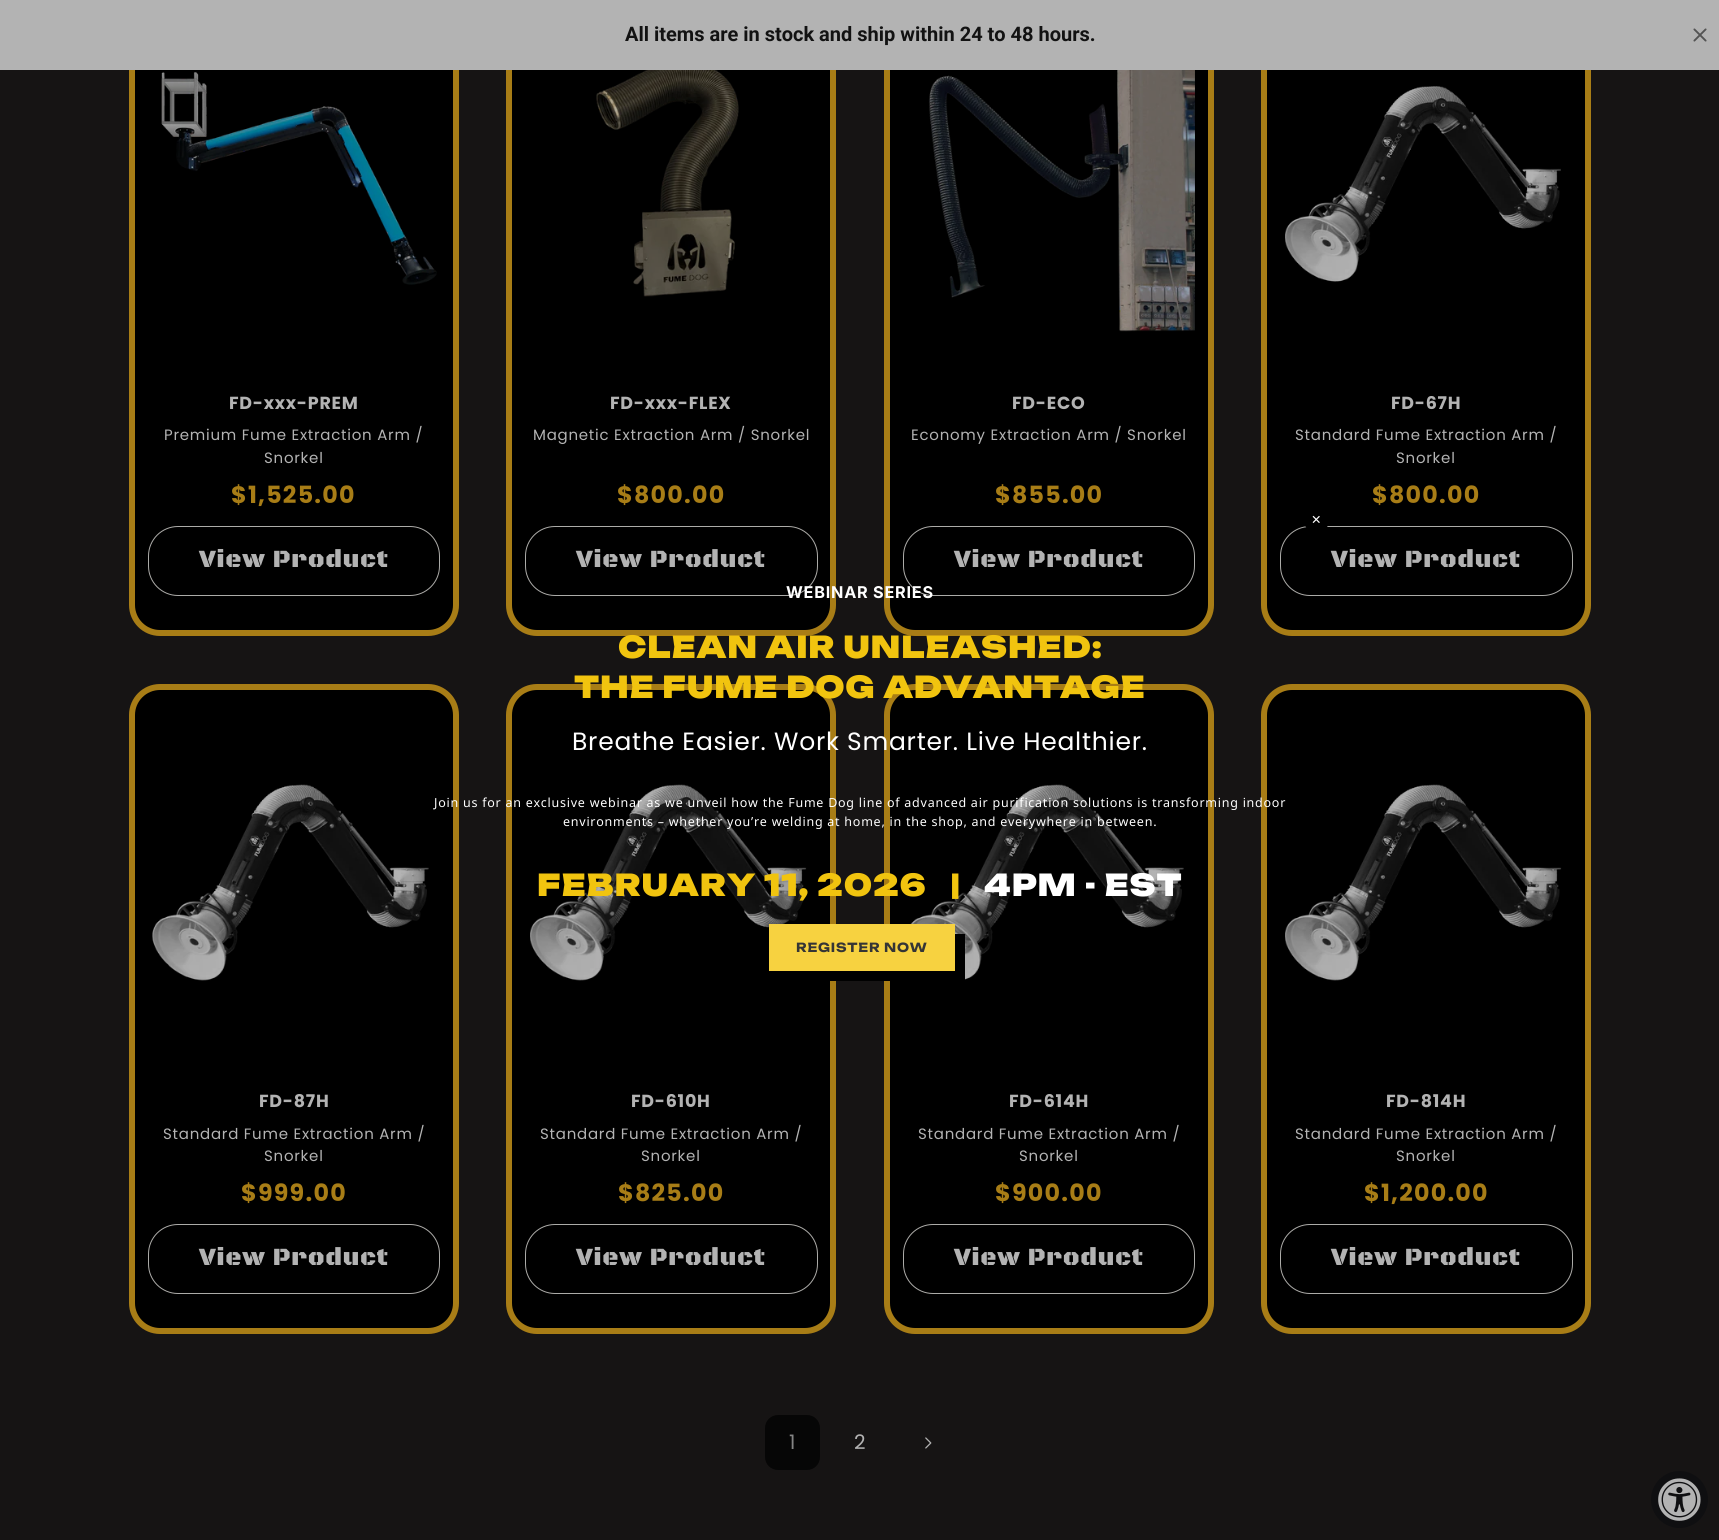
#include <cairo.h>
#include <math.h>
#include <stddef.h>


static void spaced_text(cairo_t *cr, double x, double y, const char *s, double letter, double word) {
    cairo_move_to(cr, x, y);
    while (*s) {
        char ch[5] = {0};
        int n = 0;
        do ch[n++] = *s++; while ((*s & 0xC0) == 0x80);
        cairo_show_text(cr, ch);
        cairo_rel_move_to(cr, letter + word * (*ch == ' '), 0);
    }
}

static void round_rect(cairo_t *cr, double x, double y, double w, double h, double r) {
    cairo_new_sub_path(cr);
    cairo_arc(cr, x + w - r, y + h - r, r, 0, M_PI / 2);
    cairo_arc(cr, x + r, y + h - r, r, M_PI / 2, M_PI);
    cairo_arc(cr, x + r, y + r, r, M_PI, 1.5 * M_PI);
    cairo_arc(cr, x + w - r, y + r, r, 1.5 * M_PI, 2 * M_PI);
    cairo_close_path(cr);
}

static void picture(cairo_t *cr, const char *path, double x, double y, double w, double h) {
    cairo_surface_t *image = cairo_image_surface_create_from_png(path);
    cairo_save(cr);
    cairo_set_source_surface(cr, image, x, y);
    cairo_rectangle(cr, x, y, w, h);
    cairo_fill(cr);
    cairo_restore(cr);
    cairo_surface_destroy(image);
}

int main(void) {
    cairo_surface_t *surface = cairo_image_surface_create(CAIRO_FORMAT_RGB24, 1719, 1540);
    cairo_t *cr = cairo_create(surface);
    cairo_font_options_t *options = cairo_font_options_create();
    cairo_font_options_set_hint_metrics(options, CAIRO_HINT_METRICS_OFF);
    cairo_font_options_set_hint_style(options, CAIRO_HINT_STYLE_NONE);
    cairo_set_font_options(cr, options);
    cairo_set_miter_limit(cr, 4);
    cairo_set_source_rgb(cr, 0.086, 0.082, 0.082);
    cairo_paint(cr);
    cairo_set_source_rgb(cr, 0, 0, 0);
    round_rect(cr, 132, -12, 324, 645, 28);
    cairo_fill_preserve(cr);
    cairo_set_source_rgb(cr, 0.659, 0.49, 0.086);
    cairo_set_line_width(cr, 6);
    cairo_stroke(cr);
    cairo_set_source_rgb(cr, 0, 0, 0);
    round_rect(cr, 509, -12, 324, 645, 28);
    cairo_fill_preserve(cr);
    cairo_set_source_rgb(cr, 0.659, 0.49, 0.086);
    cairo_stroke(cr);
    cairo_set_source_rgb(cr, 0, 0, 0);
    round_rect(cr, 887, -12, 324, 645, 28);
    cairo_fill_preserve(cr);
    cairo_set_source_rgb(cr, 0.659, 0.49, 0.086);
    cairo_stroke(cr);
    cairo_set_source_rgb(cr, 0, 0, 0);
    round_rect(cr, 1264, -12, 324, 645, 28);
    cairo_fill_preserve(cr);
    cairo_set_source_rgb(cr, 0.659, 0.49, 0.086);
    cairo_stroke(cr);
    cairo_set_source_rgb(cr, 0.702, 0.702, 0.702);
    cairo_rectangle(cr, 0, 0, 1719, 70);
    cairo_fill(cr);
    cairo_select_font_face(cr, "Roboto", CAIRO_FONT_SLANT_NORMAL, CAIRO_FONT_WEIGHT_BOLD);
    cairo_set_font_size(cr, 20);
    cairo_set_source_rgb(cr, 0.071, 0.071, 0.071);
    cairo_move_to(cr, 625, 41);
    cairo_show_text(cr, "All items are in stock and ship within 24 to 48 hours.");
    picture(cr, "img1.png", 1693, 28, 14, 14);
    picture(cr, "img2.png", 161, 72, 276, 213);
    cairo_select_font_face(cr, "Poppins", CAIRO_FONT_SLANT_NORMAL, CAIRO_FONT_WEIGHT_BOLD);
    cairo_set_font_size(cr, 17.5);
    cairo_set_source_rgb(cr, 0.702, 0.702, 0.702);
    spaced_text(cr, 229, 409, "FD-xxx-PREM", 0.75, 0);
    cairo_select_font_face(cr, "Poppins", CAIRO_FONT_SLANT_NORMAL, CAIRO_FONT_WEIGHT_NORMAL);
    cairo_set_font_size(cr, 15);
    spaced_text(cr, 164, 440, "Premium Fume Extraction Arm /", 0.75, 0);
    spaced_text(cr, 264, 463, "Snorkel", 0.75, 0);
    cairo_select_font_face(cr, "Poppins", CAIRO_FONT_SLANT_NORMAL, CAIRO_FONT_WEIGHT_BOLD);
    cairo_set_font_size(cr, 23.75);
    cairo_set_source_rgb(cr, 0.659, 0.49, 0.086);
    spaced_text(cr, 231, 503, "$1,525.00", 1.25, 0);
    round_rect(cr, 148.5, 526.5, 291, 69, 29.5);
    cairo_set_source_rgb(cr, 0.675, 0.671, 0.659);
    cairo_set_line_width(cr, 1);
    cairo_stroke(cr);
    cairo_select_font_face(cr, "Black Ops One Black", CAIRO_FONT_SLANT_NORMAL, CAIRO_FONT_WEIGHT_NORMAL);
    cairo_set_font_size(cr, 25);
    cairo_set_source_rgb(cr, 0.702, 0.702, 0.702);
    spaced_text(cr, 199, 567, "View Product", 0.75, 0);
    picture(cr, "img3.png", 596, 70, 143, 227);
    cairo_select_font_face(cr, "Poppins", CAIRO_FONT_SLANT_NORMAL, CAIRO_FONT_WEIGHT_BOLD);
    cairo_set_font_size(cr, 17.5);
    spaced_text(cr, 610, 409, "FD-xxx-FLEX", 0.75, 0);
    cairo_select_font_face(cr, "Poppins", CAIRO_FONT_SLANT_NORMAL, CAIRO_FONT_WEIGHT_NORMAL);
    cairo_set_font_size(cr, 15);
    spaced_text(cr, 533, 440, "Magnetic Extraction Arm / Snorkel", 0.75, 0);
    cairo_select_font_face(cr, "Poppins", CAIRO_FONT_SLANT_NORMAL, CAIRO_FONT_WEIGHT_BOLD);
    cairo_set_font_size(cr, 23.75);
    cairo_set_source_rgb(cr, 0.659, 0.49, 0.086);
    spaced_text(cr, 617, 503, "$800.00", 1.25, 0);
    round_rect(cr, 525.5, 526.5, 292, 69, 29.5);
    cairo_set_source_rgb(cr, 0.675, 0.671, 0.659);
    cairo_stroke(cr);
    cairo_select_font_face(cr, "Black Ops One Black", CAIRO_FONT_SLANT_NORMAL, CAIRO_FONT_WEIGHT_NORMAL);
    cairo_set_font_size(cr, 25);
    cairo_set_source_rgb(cr, 0.702, 0.702, 0.702);
    spaced_text(cr, 576, 567, "View Product", 0.75, 0);
    picture(cr, "img4.png", 928, 70, 267, 262);
    cairo_select_font_face(cr, "Poppins", CAIRO_FONT_SLANT_NORMAL, CAIRO_FONT_WEIGHT_BOLD);
    cairo_set_font_size(cr, 17.5);
    spaced_text(cr, 1012, 409, "FD-ECO", 0.75, 0);
    cairo_select_font_face(cr, "Poppins", CAIRO_FONT_SLANT_NORMAL, CAIRO_FONT_WEIGHT_NORMAL);
    cairo_set_font_size(cr, 15);
    spaced_text(cr, 911, 440, "Economy Extraction Arm / Snorkel", 0.75, 0);
    cairo_select_font_face(cr, "Poppins", CAIRO_FONT_SLANT_NORMAL, CAIRO_FONT_WEIGHT_BOLD);
    cairo_set_font_size(cr, 23.75);
    cairo_set_source_rgb(cr, 0.659, 0.49, 0.086);
    spaced_text(cr, 995, 503, "$855.00", 1.25, 0);
    round_rect(cr, 903.5, 526.5, 291, 69, 29.5);
    cairo_set_source_rgb(cr, 0.675, 0.671, 0.659);
    cairo_stroke(cr);
    cairo_select_font_face(cr, "Black Ops One Black", CAIRO_FONT_SLANT_NORMAL, CAIRO_FONT_WEIGHT_NORMAL);
    cairo_set_font_size(cr, 25);
    cairo_set_source_rgb(cr, 0.702, 0.702, 0.702);
    spaced_text(cr, 954, 567, "View Product", 0.75, 0);
    picture(cr, "img5.png", 1285, 86, 276, 196);
    cairo_select_font_face(cr, "Poppins", CAIRO_FONT_SLANT_NORMAL, CAIRO_FONT_WEIGHT_BOLD);
    cairo_set_font_size(cr, 17.5);
    spaced_text(cr, 1391, 409, "FD-67H", 0.75, 0);
    cairo_select_font_face(cr, "Poppins", CAIRO_FONT_SLANT_NORMAL, CAIRO_FONT_WEIGHT_NORMAL);
    cairo_set_font_size(cr, 15);
    spaced_text(cr, 1295, 440, "Standard Fume Extraction Arm /", 0.75, 0);
    spaced_text(cr, 1396, 463, "Snorkel", 0.75, 0);
    cairo_select_font_face(cr, "Poppins", CAIRO_FONT_SLANT_NORMAL, CAIRO_FONT_WEIGHT_BOLD);
    cairo_set_font_size(cr, 23.75);
    cairo_set_source_rgb(cr, 0.659, 0.49, 0.086);
    spaced_text(cr, 1372, 503, "$800.00", 1.25, 0);
    round_rect(cr, 1280.5, 526.5, 292, 69, 29.5);
    cairo_set_source_rgb(cr, 0.675, 0.671, 0.659);
    cairo_stroke(cr);
    cairo_select_font_face(cr, "Black Ops One Black", CAIRO_FONT_SLANT_NORMAL, CAIRO_FONT_WEIGHT_NORMAL);
    cairo_set_font_size(cr, 25);
    cairo_set_source_rgb(cr, 0.702, 0.702, 0.702);
    spaced_text(cr, 1331, 567, "View Product", 0.75, 0);
    cairo_set_source_rgb(cr, 0, 0, 0);
    round_rect(cr, 132, 687, 324, 644, 28);
    cairo_fill_preserve(cr);
    cairo_set_source_rgb(cr, 0.659, 0.49, 0.086);
    cairo_set_line_width(cr, 6);
    cairo_stroke(cr);
    picture(cr, "img6.png", 152, 784, 277, 197);
    cairo_select_font_face(cr, "Poppins", CAIRO_FONT_SLANT_NORMAL, CAIRO_FONT_WEIGHT_BOLD);
    cairo_set_font_size(cr, 17.5);
    cairo_set_source_rgb(cr, 0.702, 0.702, 0.702);
    spaced_text(cr, 259, 1107, "FD-87H", 0.75, 0);
    cairo_select_font_face(cr, "Poppins", CAIRO_FONT_SLANT_NORMAL, CAIRO_FONT_WEIGHT_NORMAL);
    cairo_set_font_size(cr, 15);
    spaced_text(cr, 163, 1139, "Standard Fume Extraction Arm /", 0.75, 0);
    spaced_text(cr, 264, 1161, "Snorkel", 0.75, 0);
    cairo_select_font_face(cr, "Poppins", CAIRO_FONT_SLANT_NORMAL, CAIRO_FONT_WEIGHT_BOLD);
    cairo_set_font_size(cr, 23.75);
    cairo_set_source_rgb(cr, 0.659, 0.49, 0.086);
    spaced_text(cr, 241, 1201, "$999.00", 1.25, 0);
    round_rect(cr, 148.5, 1224.5, 291, 69, 29.5);
    cairo_set_source_rgb(cr, 0.675, 0.671, 0.659);
    cairo_set_line_width(cr, 1);
    cairo_stroke(cr);
    cairo_select_font_face(cr, "Black Ops One Black", CAIRO_FONT_SLANT_NORMAL, CAIRO_FONT_WEIGHT_NORMAL);
    cairo_set_font_size(cr, 25);
    cairo_set_source_rgb(cr, 0.702, 0.702, 0.702);
    spaced_text(cr, 199, 1265, "View Product", 0.75, 0);
    cairo_set_source_rgb(cr, 0, 0, 0);
    round_rect(cr, 509, 687, 324, 644, 28);
    cairo_fill_preserve(cr);
    cairo_set_source_rgb(cr, 0.659, 0.49, 0.086);
    cairo_set_line_width(cr, 6);
    cairo_stroke(cr);
    picture(cr, "img7.png", 530, 784, 277, 197);
    cairo_select_font_face(cr, "Poppins", CAIRO_FONT_SLANT_NORMAL, CAIRO_FONT_WEIGHT_BOLD);
    cairo_set_font_size(cr, 17.5);
    cairo_set_source_rgb(cr, 0.702, 0.702, 0.702);
    spaced_text(cr, 631, 1107, "FD-610H", 0.75, 0);
    cairo_select_font_face(cr, "Poppins", CAIRO_FONT_SLANT_NORMAL, CAIRO_FONT_WEIGHT_NORMAL);
    cairo_set_font_size(cr, 15);
    spaced_text(cr, 540, 1139, "Standard Fume Extraction Arm /", 0.75, 0);
    spaced_text(cr, 641, 1161, "Snorkel", 0.75, 0);
    cairo_select_font_face(cr, "Poppins", CAIRO_FONT_SLANT_NORMAL, CAIRO_FONT_WEIGHT_BOLD);
    cairo_set_font_size(cr, 23.75);
    cairo_set_source_rgb(cr, 0.659, 0.49, 0.086);
    spaced_text(cr, 618, 1201, "$825.00", 1.25, 0);
    round_rect(cr, 525.5, 1224.5, 292, 69, 29.5);
    cairo_set_source_rgb(cr, 0.675, 0.671, 0.659);
    cairo_set_line_width(cr, 1);
    cairo_stroke(cr);
    cairo_select_font_face(cr, "Black Ops One Black", CAIRO_FONT_SLANT_NORMAL, CAIRO_FONT_WEIGHT_NORMAL);
    cairo_set_font_size(cr, 25);
    cairo_set_source_rgb(cr, 0.702, 0.702, 0.702);
    spaced_text(cr, 576, 1265, "View Product", 0.75, 0);
    cairo_set_source_rgb(cr, 0, 0, 0);
    round_rect(cr, 887, 687, 324, 644, 28);
    cairo_fill_preserve(cr);
    cairo_set_source_rgb(cr, 0.659, 0.49, 0.086);
    cairo_set_line_width(cr, 6);
    cairo_stroke(cr);
    picture(cr, "img8.png", 910, 784, 274, 196);
    cairo_select_font_face(cr, "Poppins", CAIRO_FONT_SLANT_NORMAL, CAIRO_FONT_WEIGHT_BOLD);
    cairo_set_font_size(cr, 17.5);
    cairo_set_source_rgb(cr, 0.702, 0.702, 0.702);
    spaced_text(cr, 1009, 1107, "FD-614H", 0.75, 0);
    cairo_select_font_face(cr, "Poppins", CAIRO_FONT_SLANT_NORMAL, CAIRO_FONT_WEIGHT_NORMAL);
    cairo_set_font_size(cr, 15);
    spaced_text(cr, 918, 1139, "Standard Fume Extraction Arm /", 0.75, 0);
    spaced_text(cr, 1019, 1161, "Snorkel", 0.75, 0);
    cairo_select_font_face(cr, "Poppins", CAIRO_FONT_SLANT_NORMAL, CAIRO_FONT_WEIGHT_BOLD);
    cairo_set_font_size(cr, 23.75);
    cairo_set_source_rgb(cr, 0.659, 0.49, 0.086);
    spaced_text(cr, 995, 1201, "$900.00", 1.25, 0);
    round_rect(cr, 903.5, 1224.5, 291, 69, 29.5);
    cairo_set_source_rgb(cr, 0.675, 0.671, 0.659);
    cairo_set_line_width(cr, 1);
    cairo_stroke(cr);
    cairo_select_font_face(cr, "Black Ops One Black", CAIRO_FONT_SLANT_NORMAL, CAIRO_FONT_WEIGHT_NORMAL);
    cairo_set_font_size(cr, 25);
    cairo_set_source_rgb(cr, 0.702, 0.702, 0.702);
    spaced_text(cr, 954, 1265, "View Product", 0.75, 0);
    cairo_set_source_rgb(cr, 0, 0, 0);
    round_rect(cr, 1264, 687, 324, 644, 28);
    cairo_fill_preserve(cr);
    cairo_set_source_rgb(cr, 0.659, 0.49, 0.086);
    cairo_set_line_width(cr, 6);
    cairo_stroke(cr);
    picture(cr, "img9.png", 1285, 784, 277, 197);
    cairo_select_font_face(cr, "Poppins", CAIRO_FONT_SLANT_NORMAL, CAIRO_FONT_WEIGHT_BOLD);
    cairo_set_font_size(cr, 17.5);
    cairo_set_source_rgb(cr, 0.702, 0.702, 0.702);
    spaced_text(cr, 1386, 1107, "FD-814H", 0.75, 0);
    cairo_select_font_face(cr, "Poppins", CAIRO_FONT_SLANT_NORMAL, CAIRO_FONT_WEIGHT_NORMAL);
    cairo_set_font_size(cr, 15);
    spaced_text(cr, 1295, 1139, "Standard Fume Extraction Arm /", 0.75, 0);
    spaced_text(cr, 1396, 1161, "Snorkel", 0.75, 0);
    cairo_select_font_face(cr, "Poppins", CAIRO_FONT_SLANT_NORMAL, CAIRO_FONT_WEIGHT_BOLD);
    cairo_set_font_size(cr, 23.75);
    cairo_set_source_rgb(cr, 0.659, 0.49, 0.086);
    spaced_text(cr, 1364, 1201, "$1,200.00", 1.25, 0);
    round_rect(cr, 1280.5, 1224.5, 292, 69, 29.5);
    cairo_set_source_rgb(cr, 0.675, 0.671, 0.659);
    cairo_set_line_width(cr, 1);
    cairo_stroke(cr);
    cairo_select_font_face(cr, "Black Ops One Black", CAIRO_FONT_SLANT_NORMAL, CAIRO_FONT_WEIGHT_NORMAL);
    cairo_set_font_size(cr, 25);
    cairo_set_source_rgb(cr, 0.702, 0.702, 0.702);
    spaced_text(cr, 1331, 1265, "View Product", 0.75, 0);
    cairo_set_source_rgb(cr, 0.024, 0.024, 0.024);
    round_rect(cr, 765, 1415, 55, 55, 13);
    cairo_fill(cr);
    cairo_select_font_face(cr, "Poppins", CAIRO_FONT_SLANT_NORMAL, CAIRO_FONT_WEIGHT_NORMAL);
    cairo_set_font_size(cr, 20);
    cairo_set_source_rgb(cr, 0.518, 0.518, 0.518);
    spaced_text(cr, 789, 1449, "1", 0.75, 0);
    cairo_set_source_rgb(cr, 0.702, 0.702, 0.702);
    spaced_text(cr, 854, 1449, "2", 0.75, 0);
    picture(cr, "img10.png", 925, 1437, 7, 12);
    cairo_set_source_rgb(cr, 0, 0, 0);
    cairo_arc(cr, 1316.5, 520.5, 12.5, 0, 2 * M_PI);
    cairo_fill(cr);
    cairo_select_font_face(cr, "DejaVu Sans", CAIRO_FONT_SLANT_NORMAL, CAIRO_FONT_WEIGHT_NORMAL);
    cairo_set_font_size(cr, 12.5);
    cairo_set_source_rgb(cr, 1, 1, 1);
    cairo_move_to(cr, 1311, 524);
    cairo_show_text(cr, "✕");
    cairo_select_font_face(cr, "Inter", CAIRO_FONT_SLANT_NORMAL, CAIRO_FONT_WEIGHT_BOLD);
    cairo_set_font_size(cr, 16.25);
    spaced_text(cr, 786, 598, "WEBINAR SERIES", 0.75, 0);
    cairo_select_font_face(cr, "Unbounded Black", CAIRO_FONT_SLANT_NORMAL, CAIRO_FONT_WEIGHT_NORMAL);
    cairo_set_font_size(cr, 30);
    cairo_set_source_rgb(cr, 0.945, 0.769, 0.059);
    spaced_text(cr, 618, 658, "CLEAN AIR UNLEASHED:", 0.75, 0);
    spaced_text(cr, 574, 698, "THE FUME DOG ADVANTAGE", 0.75, 0);
    cairo_select_font_face(cr, "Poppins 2", CAIRO_FONT_SLANT_NORMAL, CAIRO_FONT_WEIGHT_NORMAL);
    cairo_set_font_size(cr, 25);
    cairo_set_source_rgb(cr, 1, 1, 1);
    spaced_text(cr, 572, 750, "Breathe Easier. Work Smarter. Live Healthier.", 0.75, 0);
    cairo_select_font_face(cr, "Noto Sans", CAIRO_FONT_SLANT_NORMAL, CAIRO_FONT_WEIGHT_NORMAL);
    cairo_set_font_size(cr, 12.5);
    spaced_text(cr, 434, 807, "Join us for an exclusive webinar as we unveil how the Fume Dog line of advanced air purification solutions is transforming indoor", 0.75, 0);
    spaced_text(cr, 563, 826, "environments – whether you’re welding at home, in the shop, and everywhere in between.", 0.75, 0);
    cairo_select_font_face(cr, "Unbounded Black", CAIRO_FONT_SLANT_NORMAL, CAIRO_FONT_WEIGHT_NORMAL);
    cairo_set_font_size(cr, 30);
    cairo_set_source_rgb(cr, 0.945, 0.769, 0.059);
    spaced_text(cr, 537, 896, "FEBRUARY 11, 2026   |", 0.75, 0);
    cairo_set_source_rgb(cr, 1, 1, 1);
    spaced_text(cr, 984, 896, "4PM - EST", 0.75, 0);
    cairo_set_source_rgb(cr, 0, 0, 0);
    cairo_new_path(cr);
    cairo_move_to(cr, 779, 971);
    cairo_line_to(cr, 779, 981);
    cairo_line_to(cr, 965, 981);
    cairo_line_to(cr, 965, 934);
    cairo_line_to(cr, 955, 934);
    cairo_line_to(cr, 955, 971);
    cairo_close_path(cr);
    cairo_fill(cr);
    cairo_set_source_rgb(cr, 0.965, 0.824, 0.251);
    cairo_rectangle(cr, 769, 924, 186, 47);
    cairo_fill(cr);
    cairo_select_font_face(cr, "Unbounded", CAIRO_FONT_SLANT_NORMAL, CAIRO_FONT_WEIGHT_BOLD);
    cairo_set_font_size(cr, 12.5);
    cairo_set_source_rgb(cr, 0.208, 0.208, 0.208);
    spaced_text(cr, 796, 952, "REGISTER NOW", 0.75, 0);
    cairo_set_source_rgb(cr, 0.059, 0.059, 0.067);
    cairo_new_path(cr);
    cairo_arc(cr, 1679.5, 1499.5, 28.5, 0, 2 * M_PI);
    cairo_fill(cr);
    picture(cr, "img11.png", 1658, 1478, 43, 43);
    cairo_surface_write_to_png(surface, "page.png");
    cairo_font_options_destroy(options);
    cairo_destroy(cr);
    cairo_surface_destroy(surface);
    return 0;
}
